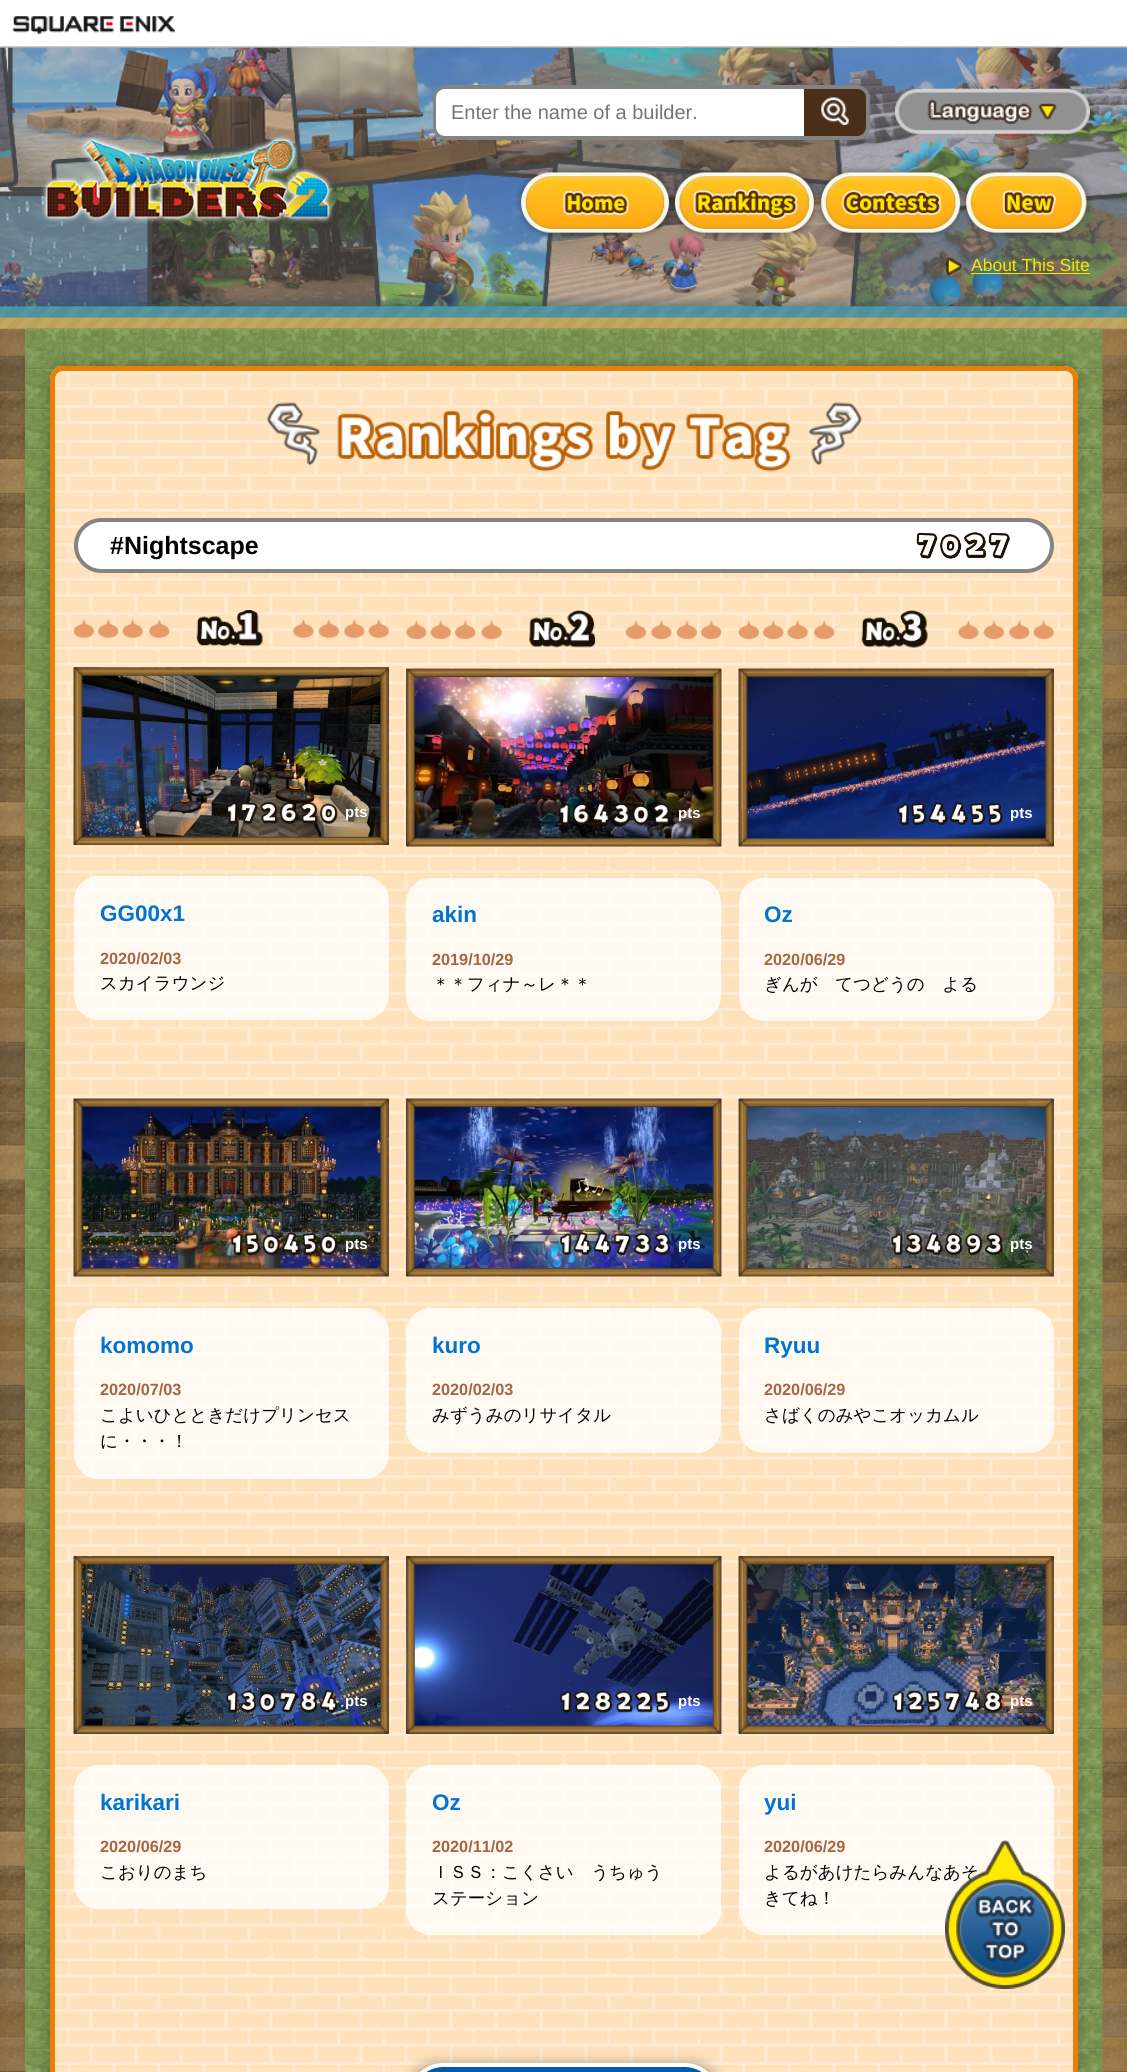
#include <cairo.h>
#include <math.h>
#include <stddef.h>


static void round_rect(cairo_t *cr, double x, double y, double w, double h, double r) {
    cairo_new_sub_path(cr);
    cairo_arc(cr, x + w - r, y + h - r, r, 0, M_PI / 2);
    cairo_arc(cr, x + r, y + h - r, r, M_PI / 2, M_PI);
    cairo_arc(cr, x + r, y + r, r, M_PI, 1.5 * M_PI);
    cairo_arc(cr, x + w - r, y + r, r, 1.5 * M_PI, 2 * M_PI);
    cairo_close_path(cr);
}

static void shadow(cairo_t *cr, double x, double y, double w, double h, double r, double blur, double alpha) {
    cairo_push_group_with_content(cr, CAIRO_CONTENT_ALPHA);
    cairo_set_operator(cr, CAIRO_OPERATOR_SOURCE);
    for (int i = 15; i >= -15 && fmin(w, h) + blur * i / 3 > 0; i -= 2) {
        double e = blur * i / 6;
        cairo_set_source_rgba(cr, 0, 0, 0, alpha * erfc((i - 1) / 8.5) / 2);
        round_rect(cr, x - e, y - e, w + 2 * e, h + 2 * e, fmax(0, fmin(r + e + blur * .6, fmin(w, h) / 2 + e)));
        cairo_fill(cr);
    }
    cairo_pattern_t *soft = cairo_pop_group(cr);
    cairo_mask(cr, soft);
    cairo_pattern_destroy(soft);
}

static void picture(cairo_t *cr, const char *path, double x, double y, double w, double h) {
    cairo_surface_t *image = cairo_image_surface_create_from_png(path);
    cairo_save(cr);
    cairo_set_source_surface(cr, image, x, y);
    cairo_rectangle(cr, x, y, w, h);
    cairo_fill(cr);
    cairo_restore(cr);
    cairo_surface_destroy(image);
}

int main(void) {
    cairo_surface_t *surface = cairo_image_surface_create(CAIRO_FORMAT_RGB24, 1127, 2072);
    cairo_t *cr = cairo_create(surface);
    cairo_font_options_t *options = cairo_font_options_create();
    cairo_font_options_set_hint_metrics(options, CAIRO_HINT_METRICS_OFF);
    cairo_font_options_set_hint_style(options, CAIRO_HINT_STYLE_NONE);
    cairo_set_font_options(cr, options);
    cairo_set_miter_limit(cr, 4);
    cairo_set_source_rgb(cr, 1, 1, 1);
    cairo_paint(cr);
    cairo_set_source_rgb(cr, 0.8, 0.8, 0.8);
    cairo_rectangle(cr, 0, 46, 1127, 1);
    cairo_fill(cr);
    picture(cr, "img1.png", 12, 16, 163, 18);
    picture(cr, "img2.png", 0, 47, 1127, 2025);
    picture(cr, "img3.png", 0, 47, 1127, 282);
    picture(cr, "img4.png", 41, 134, 293, 90);
    round_rect(cr, 435, 87, 433, 51, 11);
    cairo_set_source_rgb(cr, 0.514, 0.514, 0.514);
    cairo_set_line_width(cr, 4);
    cairo_stroke(cr);
    cairo_set_source_rgb(cr, 1, 1, 1);
    cairo_new_path(cr);
    cairo_move_to(cr, 445, 89);
    cairo_line_to(cr, 804, 89);
    cairo_line_to(cr, 804, 136);
    cairo_line_to(cr, 445, 136);
    cairo_curve_to(cr, 440, 136, 436, 132, 436, 127);
    cairo_line_to(cr, 436, 98);
    cairo_curve_to(cr, 436, 93, 440, 89, 445, 89);
    cairo_close_path(cr);
    cairo_fill(cr);
    cairo_select_font_face(cr, "Liberation Sans", CAIRO_FONT_SLANT_NORMAL, CAIRO_FONT_WEIGHT_NORMAL);
    cairo_set_font_size(cr, 20);
    cairo_set_source_rgb(cr, 0.459, 0.459, 0.459);
    cairo_move_to(cr, 451, 119);
    cairo_show_text(cr, "Enter the name of a builder.");
    cairo_set_source_rgb(cr, 0.286, 0.18, 0.098);
    cairo_new_path(cr);
    cairo_move_to(cr, 804, 89);
    cairo_line_to(cr, 857, 89);
    cairo_curve_to(cr, 862, 89, 866, 93, 866, 98);
    cairo_line_to(cr, 866, 127);
    cairo_curve_to(cr, 866, 132, 862, 136, 857, 136);
    cairo_line_to(cr, 804, 136);
    cairo_close_path(cr);
    cairo_fill(cr);
    picture(cr, "img5.png", 821, 97, 28, 28);
    picture(cr, "img6.png", 895, 88, 195, 46);
    cairo_set_font_size(cr, 17);
    cairo_set_source_rgb(cr, 0.592, 0.576, 0.569);
    cairo_move_to(cr, 930, 118);
    cairo_show_text(cr, "i");
    picture(cr, "img7.png", 515, 167, 158, 71);
    picture(cr, "img8.png", 671, 167, 149, 72);
    picture(cr, "img9.png", 816, 166, 150, 72);
    picture(cr, "img10.png", 961, 167, 131, 71);
    picture(cr, "img11.png", 946, 257, 17, 18);
    cairo_set_font_size(cr, 17.5);
    cairo_set_source_rgb(cr, 0.98, 0.898, 0.004);
    cairo_move_to(cr, 971, 271);
    cairo_show_text(cr, "About This Site");
    cairo_rectangle(cr, 971, 273, 119, 1);
    cairo_fill(cr);
    picture(cr, "img12.png", 25, 328, 1078, 1744);
    cairo_set_source_rgb(cr, 0, 0, 0);
    shadow(cr, 50, 366, 1028, 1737, 13, 6, 0.3);
    cairo_set_source_rgb(cr, 1, 0.886, 0.737);
    round_rect(cr, 50, 366, 1028, 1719, 13);
    cairo_fill(cr);
    picture(cr, "img13.png", 51, 370, 1026, 1702);
    round_rect(cr, 52.5, 368.5, 1023, 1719, 10.5);
    cairo_set_source_rgb(cr, 0.922, 0.494, 0.035);
    cairo_set_line_width(cr, 5);
    cairo_stroke(cr);
    picture(cr, "img14.png", 267, 402, 595, 70);
    cairo_set_source_rgb(cr, 1, 1, 1);
    round_rect(cr, 76, 520, 976, 51, 25.5);
    cairo_fill_preserve(cr);
    cairo_set_source_rgb(cr, 0.514, 0.514, 0.514);
    cairo_set_line_width(cr, 4);
    cairo_stroke(cr);
    cairo_select_font_face(cr, "Liberation Sans", CAIRO_FONT_SLANT_NORMAL, CAIRO_FONT_WEIGHT_BOLD);
    cairo_set_font_size(cr, 25);
    cairo_set_source_rgb(cr, 0, 0, 0);
    cairo_move_to(cr, 110, 554);
    cairo_show_text(cr, "#Nightscape");
    picture(cr, "img15.png", 916, 532, 22, 27);
    picture(cr, "img16.png", 940, 534, 22, 25);
    picture(cr, "img17.png", 963, 532, 24, 26);
    picture(cr, "img18.png", 988, 532, 22, 27);
    picture(cr, "img19.png", 73, 610, 316, 37);
    picture(cr, "img20.png", 73, 667, 316, 178);
    picture(cr, "img21.png", 73, 667, 316, 178);
    picture(cr, "img22.png", 226, 802, 12, 22);
    picture(cr, "img23.png", 240, 802, 18, 22);
    picture(cr, "img24.png", 260, 802, 18, 22);
    picture(cr, "img25.png", 280, 802, 18, 22);
    picture(cr, "img26.png", 300, 802, 18, 22);
    picture(cr, "img27.png", 320, 803, 18, 21);
    cairo_set_font_size(cr, 15);
    cairo_set_source_rgb(cr, 1, 1, 1);
    cairo_move_to(cr, 345, 817);
    cairo_show_text(cr, "pts");
    cairo_set_source_rgba(cr, 1, 1, 1, 0.8);
    round_rect(cr, 74, 876, 315, 144, 25);
    cairo_fill(cr);
    cairo_set_font_size(cr, 22.5);
    cairo_set_source_rgb(cr, 0, 0.455, 0.824);
    cairo_move_to(cr, 100, 921);
    cairo_show_text(cr, "GG00x1");
    cairo_set_font_size(cr, 16.25);
    cairo_set_source_rgb(cr, 0.647, 0.4, 0.259);
    cairo_move_to(cr, 100, 964);
    cairo_show_text(cr, "2020/02/03");
    cairo_select_font_face(cr, "WenQuanYi Zen Hei Medium", CAIRO_FONT_SLANT_NORMAL, CAIRO_FONT_WEIGHT_NORMAL);
    cairo_set_font_size(cr, 17.5);
    cairo_set_source_rgb(cr, 0, 0, 0);
    cairo_move_to(cr, 100, 989);
    cairo_show_text(cr, "スカイラウンジ");
    picture(cr, "img28.png", 406, 610, 316, 38);
    picture(cr, "img29.png", 406, 668, 316, 179);
    picture(cr, "img30.png", 406, 668, 316, 179);
    picture(cr, "img31.png", 558, 803, 12, 22);
    picture(cr, "img32.png", 572, 803, 18, 22);
    picture(cr, "img33.png", 592, 802, 18, 23);
    picture(cr, "img34.png", 612, 803, 18, 22);
    picture(cr, "img35.png", 632, 805, 18, 20);
    picture(cr, "img36.png", 652, 803, 18, 22);
    cairo_select_font_face(cr, "Liberation Sans", CAIRO_FONT_SLANT_NORMAL, CAIRO_FONT_WEIGHT_BOLD);
    cairo_set_font_size(cr, 15);
    cairo_set_source_rgb(cr, 1, 1, 1);
    cairo_move_to(cr, 678, 818);
    cairo_show_text(cr, "pts");
    cairo_set_source_rgba(cr, 1, 1, 1, 0.8);
    round_rect(cr, 406, 878, 315, 143, 25);
    cairo_fill(cr);
    cairo_set_font_size(cr, 22.5);
    cairo_set_source_rgb(cr, 0, 0.455, 0.824);
    cairo_move_to(cr, 432, 922);
    cairo_show_text(cr, "akin");
    cairo_set_font_size(cr, 16.25);
    cairo_set_source_rgb(cr, 0.647, 0.4, 0.259);
    cairo_move_to(cr, 432, 965);
    cairo_show_text(cr, "2019/10/29");
    cairo_select_font_face(cr, "WenQuanYi Zen Hei Medium", CAIRO_FONT_SLANT_NORMAL, CAIRO_FONT_WEIGHT_NORMAL);
    cairo_set_font_size(cr, 17.5);
    cairo_set_source_rgb(cr, 0, 0, 0);
    cairo_move_to(cr, 432, 990);
    cairo_show_text(cr, "＊＊フィナ～レ＊＊");
    picture(cr, "img37.png", 738, 610, 316, 38);
    picture(cr, "img38.png", 738, 668, 316, 179);
    picture(cr, "img39.png", 738, 668, 316, 179);
    picture(cr, "img40.png", 897, 803, 12, 22);
    picture(cr, "img41.png", 911, 802, 16, 23);
    picture(cr, "img42.png", 928, 802, 20, 23);
    picture(cr, "img43.png", 950, 802, 18, 23);
    picture(cr, "img44.png", 970, 802, 15, 23);
    picture(cr, "img45.png", 987, 802, 16, 23);
    cairo_select_font_face(cr, "Liberation Sans", CAIRO_FONT_SLANT_NORMAL, CAIRO_FONT_WEIGHT_BOLD);
    cairo_set_font_size(cr, 15);
    cairo_set_source_rgb(cr, 1, 1, 1);
    cairo_move_to(cr, 1010, 818);
    cairo_show_text(cr, "pts");
    cairo_set_source_rgba(cr, 1, 1, 1, 0.8);
    round_rect(cr, 739, 878, 315, 143, 25);
    cairo_fill(cr);
    cairo_set_font_size(cr, 22.5);
    cairo_set_source_rgb(cr, 0, 0.455, 0.824);
    cairo_move_to(cr, 764, 922);
    cairo_show_text(cr, "Oz");
    cairo_set_font_size(cr, 16.25);
    cairo_set_source_rgb(cr, 0.647, 0.4, 0.259);
    cairo_move_to(cr, 764, 965);
    cairo_show_text(cr, "2020/06/29");
    cairo_select_font_face(cr, "WenQuanYi Zen Hei Medium", CAIRO_FONT_SLANT_NORMAL, CAIRO_FONT_WEIGHT_NORMAL);
    cairo_set_font_size(cr, 17.5);
    cairo_set_source_rgb(cr, 0, 0, 0);
    cairo_move_to(cr, 764, 990);
    cairo_show_text(cr, "ぎんが　てつどうの　よる");
    picture(cr, "img46.png", 73, 1098, 316, 179);
    picture(cr, "img47.png", 73, 1098, 316, 179);
    picture(cr, "img48.png", 231, 1233, 12, 22);
    picture(cr, "img49.png", 245, 1232, 15, 23);
    picture(cr, "img50.png", 262, 1234, 18, 21);
    picture(cr, "img51.png", 282, 1232, 18, 23);
    picture(cr, "img52.png", 302, 1233, 16, 22);
    picture(cr, "img53.png", 320, 1234, 18, 21);
    cairo_select_font_face(cr, "Liberation Sans", CAIRO_FONT_SLANT_NORMAL, CAIRO_FONT_WEIGHT_BOLD);
    cairo_set_font_size(cr, 15);
    cairo_set_source_rgb(cr, 1, 1, 1);
    cairo_move_to(cr, 345, 1249);
    cairo_show_text(cr, "pts");
    cairo_set_source_rgba(cr, 1, 1, 1, 0.8);
    round_rect(cr, 74, 1308, 315, 171, 25);
    cairo_fill(cr);
    cairo_set_font_size(cr, 22.5);
    cairo_set_source_rgb(cr, 0, 0.455, 0.824);
    cairo_move_to(cr, 100, 1353);
    cairo_show_text(cr, "komomo");
    cairo_set_font_size(cr, 16.25);
    cairo_set_source_rgb(cr, 0.647, 0.4, 0.259);
    cairo_move_to(cr, 100, 1395);
    cairo_show_text(cr, "2020/07/03");
    cairo_select_font_face(cr, "WenQuanYi Zen Hei Medium", CAIRO_FONT_SLANT_NORMAL, CAIRO_FONT_WEIGHT_NORMAL);
    cairo_set_font_size(cr, 17.5);
    cairo_set_source_rgb(cr, 0, 0, 0);
    cairo_move_to(cr, 100, 1421);
    cairo_show_text(cr, "こよいひとときだけプリンセス");
    cairo_move_to(cr, 100, 1447);
    cairo_show_text(cr, "に・・・！");
    picture(cr, "img54.png", 406, 1098, 316, 179);
    picture(cr, "img55.png", 406, 1098, 316, 179);
    picture(cr, "img56.png", 560, 1233, 12, 22);
    picture(cr, "img57.png", 573, 1232, 19, 23);
    picture(cr, "img58.png", 593, 1232, 19, 23);
    picture(cr, "img59.png", 613, 1233, 19, 22);
    picture(cr, "img60.png", 633, 1233, 19, 22);
    picture(cr, "img61.png", 653, 1232, 17, 23);
    cairo_select_font_face(cr, "Liberation Sans", CAIRO_FONT_SLANT_NORMAL, CAIRO_FONT_WEIGHT_BOLD);
    cairo_set_font_size(cr, 15);
    cairo_set_source_rgb(cr, 1, 1, 1);
    cairo_move_to(cr, 678, 1249);
    cairo_show_text(cr, "pts");
    cairo_set_source_rgba(cr, 1, 1, 1, 0.8);
    round_rect(cr, 406, 1308, 315, 145, 25);
    cairo_fill(cr);
    cairo_set_font_size(cr, 22.5);
    cairo_set_source_rgb(cr, 0, 0.455, 0.824);
    cairo_move_to(cr, 432, 1353);
    cairo_show_text(cr, "kuro");
    cairo_set_font_size(cr, 16.25);
    cairo_set_source_rgb(cr, 0.647, 0.4, 0.259);
    cairo_move_to(cr, 432, 1395);
    cairo_show_text(cr, "2020/02/03");
    cairo_select_font_face(cr, "WenQuanYi Zen Hei Medium", CAIRO_FONT_SLANT_NORMAL, CAIRO_FONT_WEIGHT_NORMAL);
    cairo_set_font_size(cr, 17.5);
    cairo_set_source_rgb(cr, 0, 0, 0);
    cairo_move_to(cr, 432, 1421);
    cairo_show_text(cr, "みずうみのリサイタル");
    picture(cr, "img62.png", 738, 1098, 316, 179);
    picture(cr, "img63.png", 738, 1098, 316, 179);
    picture(cr, "img64.png", 891, 1233, 12, 22);
    picture(cr, "img65.png", 905, 1232, 18, 23);
    picture(cr, "img66.png", 925, 1232, 18, 23);
    picture(cr, "img67.png", 945, 1233, 18, 22);
    picture(cr, "img68.png", 965, 1233, 18, 22);
    picture(cr, "img69.png", 985, 1232, 18, 23);
    cairo_select_font_face(cr, "Liberation Sans", CAIRO_FONT_SLANT_NORMAL, CAIRO_FONT_WEIGHT_BOLD);
    cairo_set_font_size(cr, 15);
    cairo_set_source_rgb(cr, 1, 1, 1);
    cairo_move_to(cr, 1010, 1249);
    cairo_show_text(cr, "pts");
    cairo_set_source_rgba(cr, 1, 1, 1, 0.8);
    round_rect(cr, 739, 1308, 315, 145, 25);
    cairo_fill(cr);
    cairo_set_font_size(cr, 22.5);
    cairo_set_source_rgb(cr, 0, 0.455, 0.824);
    cairo_move_to(cr, 764, 1353);
    cairo_show_text(cr, "Ryuu");
    cairo_set_font_size(cr, 16.25);
    cairo_set_source_rgb(cr, 0.647, 0.4, 0.259);
    cairo_move_to(cr, 764, 1395);
    cairo_show_text(cr, "2020/06/29");
    cairo_select_font_face(cr, "WenQuanYi Zen Hei Medium", CAIRO_FONT_SLANT_NORMAL, CAIRO_FONT_WEIGHT_NORMAL);
    cairo_set_font_size(cr, 17.5);
    cairo_set_source_rgb(cr, 0, 0, 0);
    cairo_move_to(cr, 764, 1421);
    cairo_show_text(cr, "さばくのみやこオッカムル");
    picture(cr, "img70.png", 73, 1556, 316, 178);
    picture(cr, "img71.png", 73, 1556, 316, 178);
    picture(cr, "img72.png", 226, 1691, 12, 22);
    picture(cr, "img73.png", 240, 1690, 17, 23);
    picture(cr, "img74.png", 258, 1692, 19, 21);
    picture(cr, "img75.png", 278, 1691, 20, 22);
    picture(cr, "img76.png", 300, 1690, 18, 23);
    picture(cr, "img77.png", 320, 1690, 18, 23);
    cairo_select_font_face(cr, "Liberation Sans", CAIRO_FONT_SLANT_NORMAL, CAIRO_FONT_WEIGHT_BOLD);
    cairo_set_font_size(cr, 15);
    cairo_set_source_rgb(cr, 1, 1, 1);
    cairo_move_to(cr, 345, 1706);
    cairo_show_text(cr, "pts");
    cairo_set_source_rgba(cr, 1, 1, 1, 0.8);
    round_rect(cr, 74, 1765, 315, 144, 25);
    cairo_fill(cr);
    cairo_set_font_size(cr, 22.5);
    cairo_set_source_rgb(cr, 0, 0.455, 0.824);
    cairo_move_to(cr, 100, 1810);
    cairo_show_text(cr, "karikari");
    cairo_set_font_size(cr, 16.25);
    cairo_set_source_rgb(cr, 0.647, 0.4, 0.259);
    cairo_move_to(cr, 100, 1852);
    cairo_show_text(cr, "2020/06/29");
    cairo_select_font_face(cr, "WenQuanYi Zen Hei Medium", CAIRO_FONT_SLANT_NORMAL, CAIRO_FONT_WEIGHT_NORMAL);
    cairo_set_font_size(cr, 17.5);
    cairo_set_source_rgb(cr, 0, 0, 0);
    cairo_move_to(cr, 100, 1878);
    cairo_show_text(cr, "こおりのまち");
    picture(cr, "img78.png", 406, 1556, 316, 178);
    picture(cr, "img79.png", 406, 1556, 316, 178);
    picture(cr, "img80.png", 560, 1691, 12, 22);
    picture(cr, "img81.png", 573, 1690, 19, 23);
    picture(cr, "img82.png", 593, 1690, 20, 23);
    picture(cr, "img83.png", 615, 1690, 18, 23);
    picture(cr, "img84.png", 635, 1690, 18, 23);
    picture(cr, "img85.png", 655, 1690, 15, 23);
    cairo_select_font_face(cr, "Liberation Sans", CAIRO_FONT_SLANT_NORMAL, CAIRO_FONT_WEIGHT_BOLD);
    cairo_set_font_size(cr, 15);
    cairo_set_source_rgb(cr, 1, 1, 1);
    cairo_move_to(cr, 678, 1706);
    cairo_show_text(cr, "pts");
    cairo_set_source_rgba(cr, 1, 1, 1, 0.8);
    round_rect(cr, 406, 1765, 315, 170, 25);
    cairo_fill(cr);
    cairo_set_font_size(cr, 22.5);
    cairo_set_source_rgb(cr, 0, 0.455, 0.824);
    cairo_move_to(cr, 432, 1810);
    cairo_show_text(cr, "Oz");
    cairo_set_font_size(cr, 16.25);
    cairo_set_source_rgb(cr, 0.647, 0.4, 0.259);
    cairo_move_to(cr, 432, 1852);
    cairo_show_text(cr, "2020/11/02");
    cairo_select_font_face(cr, "WenQuanYi Zen Hei Medium", CAIRO_FONT_SLANT_NORMAL, CAIRO_FONT_WEIGHT_NORMAL);
    cairo_set_font_size(cr, 17.5);
    cairo_set_source_rgb(cr, 0, 0, 0);
    cairo_move_to(cr, 432, 1878);
    cairo_show_text(cr, "ＩＳＳ：こくさい　うちゅう");
    cairo_move_to(cr, 432, 1904);
    cairo_show_text(cr, "ステーション");
    picture(cr, "img86.png", 738, 1556, 316, 178);
    picture(cr, "img87.png", 738, 1556, 316, 178);
    picture(cr, "img88.png", 892, 1691, 12, 22);
    picture(cr, "img89.png", 906, 1690, 18, 23);
    picture(cr, "img90.png", 926, 1690, 16, 23);
    picture(cr, "img91.png", 943, 1690, 19, 23);
    picture(cr, "img92.png", 963, 1690, 19, 23);
    picture(cr, "img93.png", 983, 1690, 20, 23);
    cairo_select_font_face(cr, "Liberation Sans", CAIRO_FONT_SLANT_NORMAL, CAIRO_FONT_WEIGHT_BOLD);
    cairo_set_font_size(cr, 15);
    cairo_set_source_rgb(cr, 1, 1, 1);
    cairo_move_to(cr, 1010, 1706);
    cairo_show_text(cr, "pts");
    cairo_set_source_rgba(cr, 1, 1, 1, 0.8);
    round_rect(cr, 739, 1765, 315, 170, 25);
    cairo_fill(cr);
    cairo_set_font_size(cr, 22.5);
    cairo_set_source_rgb(cr, 0, 0.455, 0.824);
    cairo_move_to(cr, 764, 1810);
    cairo_show_text(cr, "yui");
    cairo_set_font_size(cr, 16.25);
    cairo_set_source_rgb(cr, 0.647, 0.4, 0.259);
    cairo_move_to(cr, 764, 1852);
    cairo_show_text(cr, "2020/06/29");
    cairo_select_font_face(cr, "WenQuanYi Zen Hei Medium", CAIRO_FONT_SLANT_NORMAL, CAIRO_FONT_WEIGHT_NORMAL);
    cairo_set_font_size(cr, 17.5);
    cairo_set_source_rgb(cr, 0, 0, 0);
    cairo_move_to(cr, 764, 1878);
    cairo_show_text(cr, "よるがあけたらみんなあそ");
    cairo_move_to(cr, 764, 1904);
    cairo_show_text(cr, "きてね！");
    cairo_set_source_rgb(cr, 0, 0, 0);
    shadow(cr, 408, 2063, 312, 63, 35.5, 6, 0.3);
    cairo_set_source_rgb(cr, 0, 0.357, 0.69);
    round_rect(cr, 410, 2065, 308, 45, 33.5);
    cairo_fill_preserve(cr);
    cairo_set_source_rgb(cr, 1, 1, 1);
    cairo_stroke(cr);
    picture(cr, "img94.png", 945, 1840, 120, 149);
    cairo_surface_write_to_png(surface, "page.png");
    cairo_font_options_destroy(options);
    cairo_destroy(cr);
    cairo_surface_destroy(surface);
    return 0;
}
